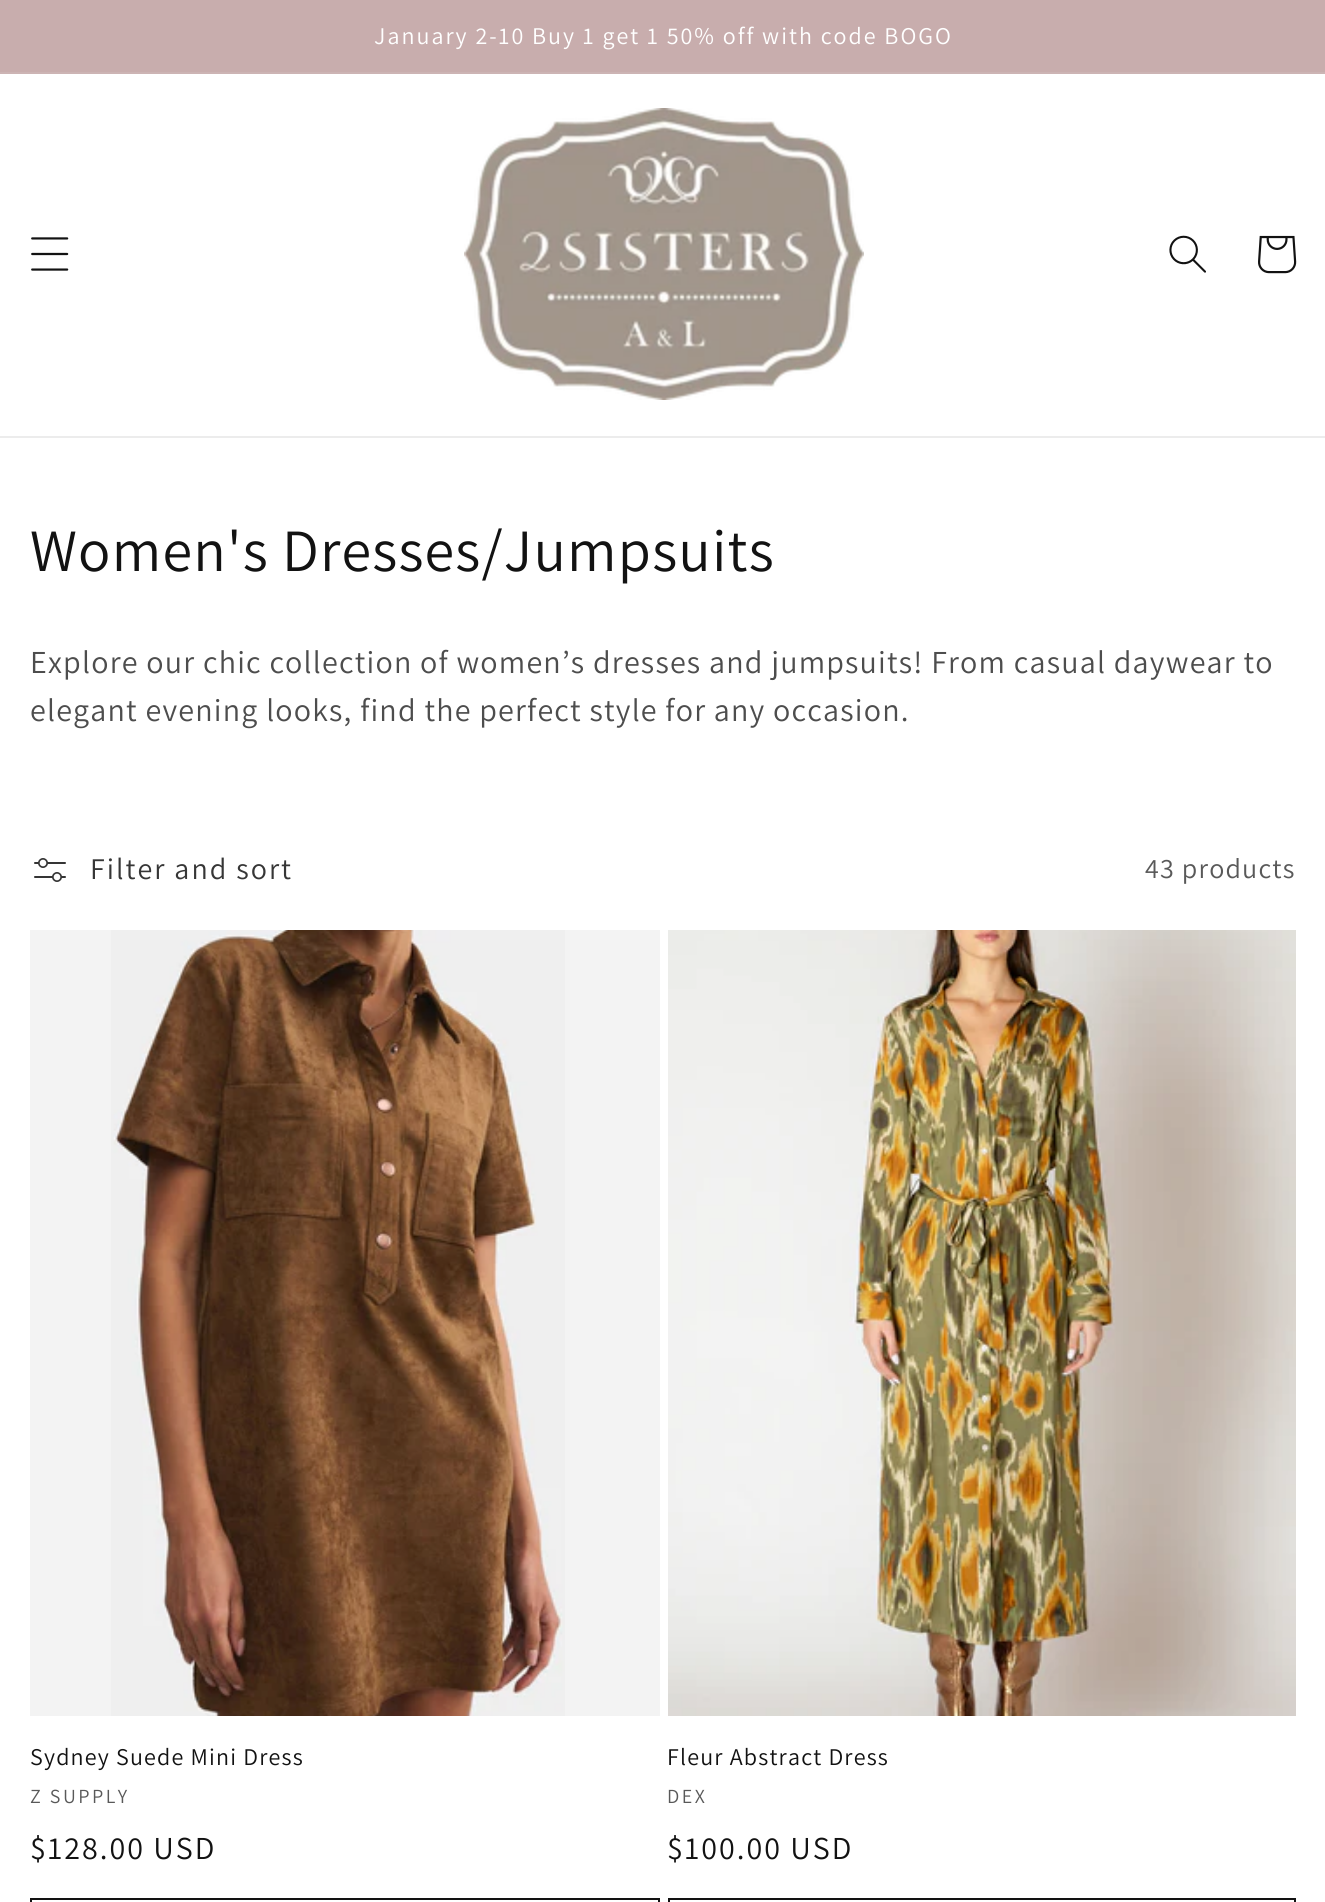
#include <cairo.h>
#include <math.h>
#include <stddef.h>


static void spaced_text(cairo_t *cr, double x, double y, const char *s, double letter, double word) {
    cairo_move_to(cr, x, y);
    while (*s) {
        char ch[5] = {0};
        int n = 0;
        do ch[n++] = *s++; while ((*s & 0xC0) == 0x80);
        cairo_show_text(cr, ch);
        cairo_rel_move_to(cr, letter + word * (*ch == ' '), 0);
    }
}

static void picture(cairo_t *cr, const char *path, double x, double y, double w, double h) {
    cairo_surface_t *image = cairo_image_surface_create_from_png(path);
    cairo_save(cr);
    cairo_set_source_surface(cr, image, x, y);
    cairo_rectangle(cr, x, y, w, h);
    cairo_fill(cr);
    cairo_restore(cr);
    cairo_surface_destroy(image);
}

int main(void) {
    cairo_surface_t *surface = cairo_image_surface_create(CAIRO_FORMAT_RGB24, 1325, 1902);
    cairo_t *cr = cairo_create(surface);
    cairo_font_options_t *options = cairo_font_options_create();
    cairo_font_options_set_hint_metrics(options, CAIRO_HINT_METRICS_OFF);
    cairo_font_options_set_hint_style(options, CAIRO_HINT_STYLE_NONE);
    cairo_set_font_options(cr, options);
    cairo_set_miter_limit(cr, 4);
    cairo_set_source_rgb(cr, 1, 1, 1);
    cairo_paint(cr);
    cairo_set_source_rgb(cr, 0.784, 0.678, 0.678);
    cairo_rectangle(cr, 0, 0, 1325, 72);
    cairo_fill(cr);
    cairo_set_source_rgb(cr, 0.8, 0.706, 0.706);
    cairo_rectangle(cr, 0, 72, 1325, 2);
    cairo_fill(cr);
    cairo_select_font_face(cr, "Assistant", CAIRO_FONT_SLANT_NORMAL, CAIRO_FONT_WEIGHT_NORMAL);
    cairo_set_font_size(cr, 24);
    cairo_set_source_rgb(cr, 1, 1, 1);
    spaced_text(cr, 374, 44, "January 2-10 Buy 1 get 1 50% off with code BOGO", 2, 0);
    cairo_set_source_rgb(cr, 0.925, 0.925, 0.925);
    cairo_rectangle(cr, 0, 436, 1325, 2);
    cairo_fill(cr);
    picture(cr, "img1.png", 31, 237, 38, 34);
    picture(cr, "img2.png", 464, 108, 400, 292);
    picture(cr, "img3.png", 1169, 235, 37, 38);
    picture(cr, "img4.png", 1258, 235, 39, 39);
    cairo_set_font_size(cr, 60);
    cairo_set_source_rgb(cr, 0.071, 0.071, 0.071);
    spaced_text(cr, 30, 571, "Women's Dresses/Jumpsuits", 1.2, 0);
    cairo_set_font_size(cr, 32);
    cairo_set_source_rgb(cr, 0.302, 0.302, 0.302);
    spaced_text(cr, 30, 673, "Explore our chic collection of women’s dresses and jumpsuits! From casual daywear to", 1.2, 0);
    spaced_text(cr, 30, 721, "elegant evening looks, find the perfect style for any occasion.", 1.2, 0);
    picture(cr, "img5.png", 34, 858, 32, 24);
    cairo_set_font_size(cr, 30);
    cairo_set_source_rgb(cr, 0.212, 0.212, 0.212);
    spaced_text(cr, 90, 879, "Filter and sort", 2, 0);
    cairo_set_font_size(cr, 28);
    cairo_set_source_rgb(cr, 0.349, 0.349, 0.349);
    spaced_text(cr, 1145, 878, "43 products", 1.2, 0);
    cairo_set_source_rgb(cr, 0.953, 0.953, 0.953);
    cairo_rectangle(cr, 30, 930, 630, 786);
    cairo_fill(cr);
    picture(cr, "img6.png", 111, 930, 454, 786);
    cairo_set_font_size(cr, 24);
    cairo_set_source_rgb(cr, 0.071, 0.071, 0.071);
    spaced_text(cr, 30, 1765, "Sydney Suede Mini Dress", 1.2, 0);
    cairo_set_font_size(cr, 20);
    cairo_set_source_rgb(cr, 0.349, 0.349, 0.349);
    spaced_text(cr, 30, 1803, "Z SUPPLY", 2.5, 0);
    cairo_set_font_size(cr, 32);
    cairo_set_source_rgb(cr, 0.071, 0.071, 0.071);
    spaced_text(cr, 30, 1859, "$128.00 USD", 2, 0);
    cairo_rectangle(cr, 31, 1899, 628, 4);
    cairo_stroke(cr);
    picture(cr, "img7.png", 668, 930, 628, 786);
    cairo_set_font_size(cr, 24);
    spaced_text(cr, 667, 1765, "Fleur Abstract Dress", 1.2, 0);
    cairo_set_font_size(cr, 20);
    cairo_set_source_rgb(cr, 0.349, 0.349, 0.349);
    spaced_text(cr, 667, 1803, "DEX", 2.5, 0);
    cairo_set_font_size(cr, 32);
    cairo_set_source_rgb(cr, 0.071, 0.071, 0.071);
    spaced_text(cr, 667, 1859, "$100.00 USD", 2, 0);
    cairo_rectangle(cr, 669, 1899, 626, 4);
    cairo_stroke(cr);
    cairo_surface_write_to_png(surface, "page.png");
    cairo_font_options_destroy(options);
    cairo_destroy(cr);
    cairo_surface_destroy(surface);
    return 0;
}
